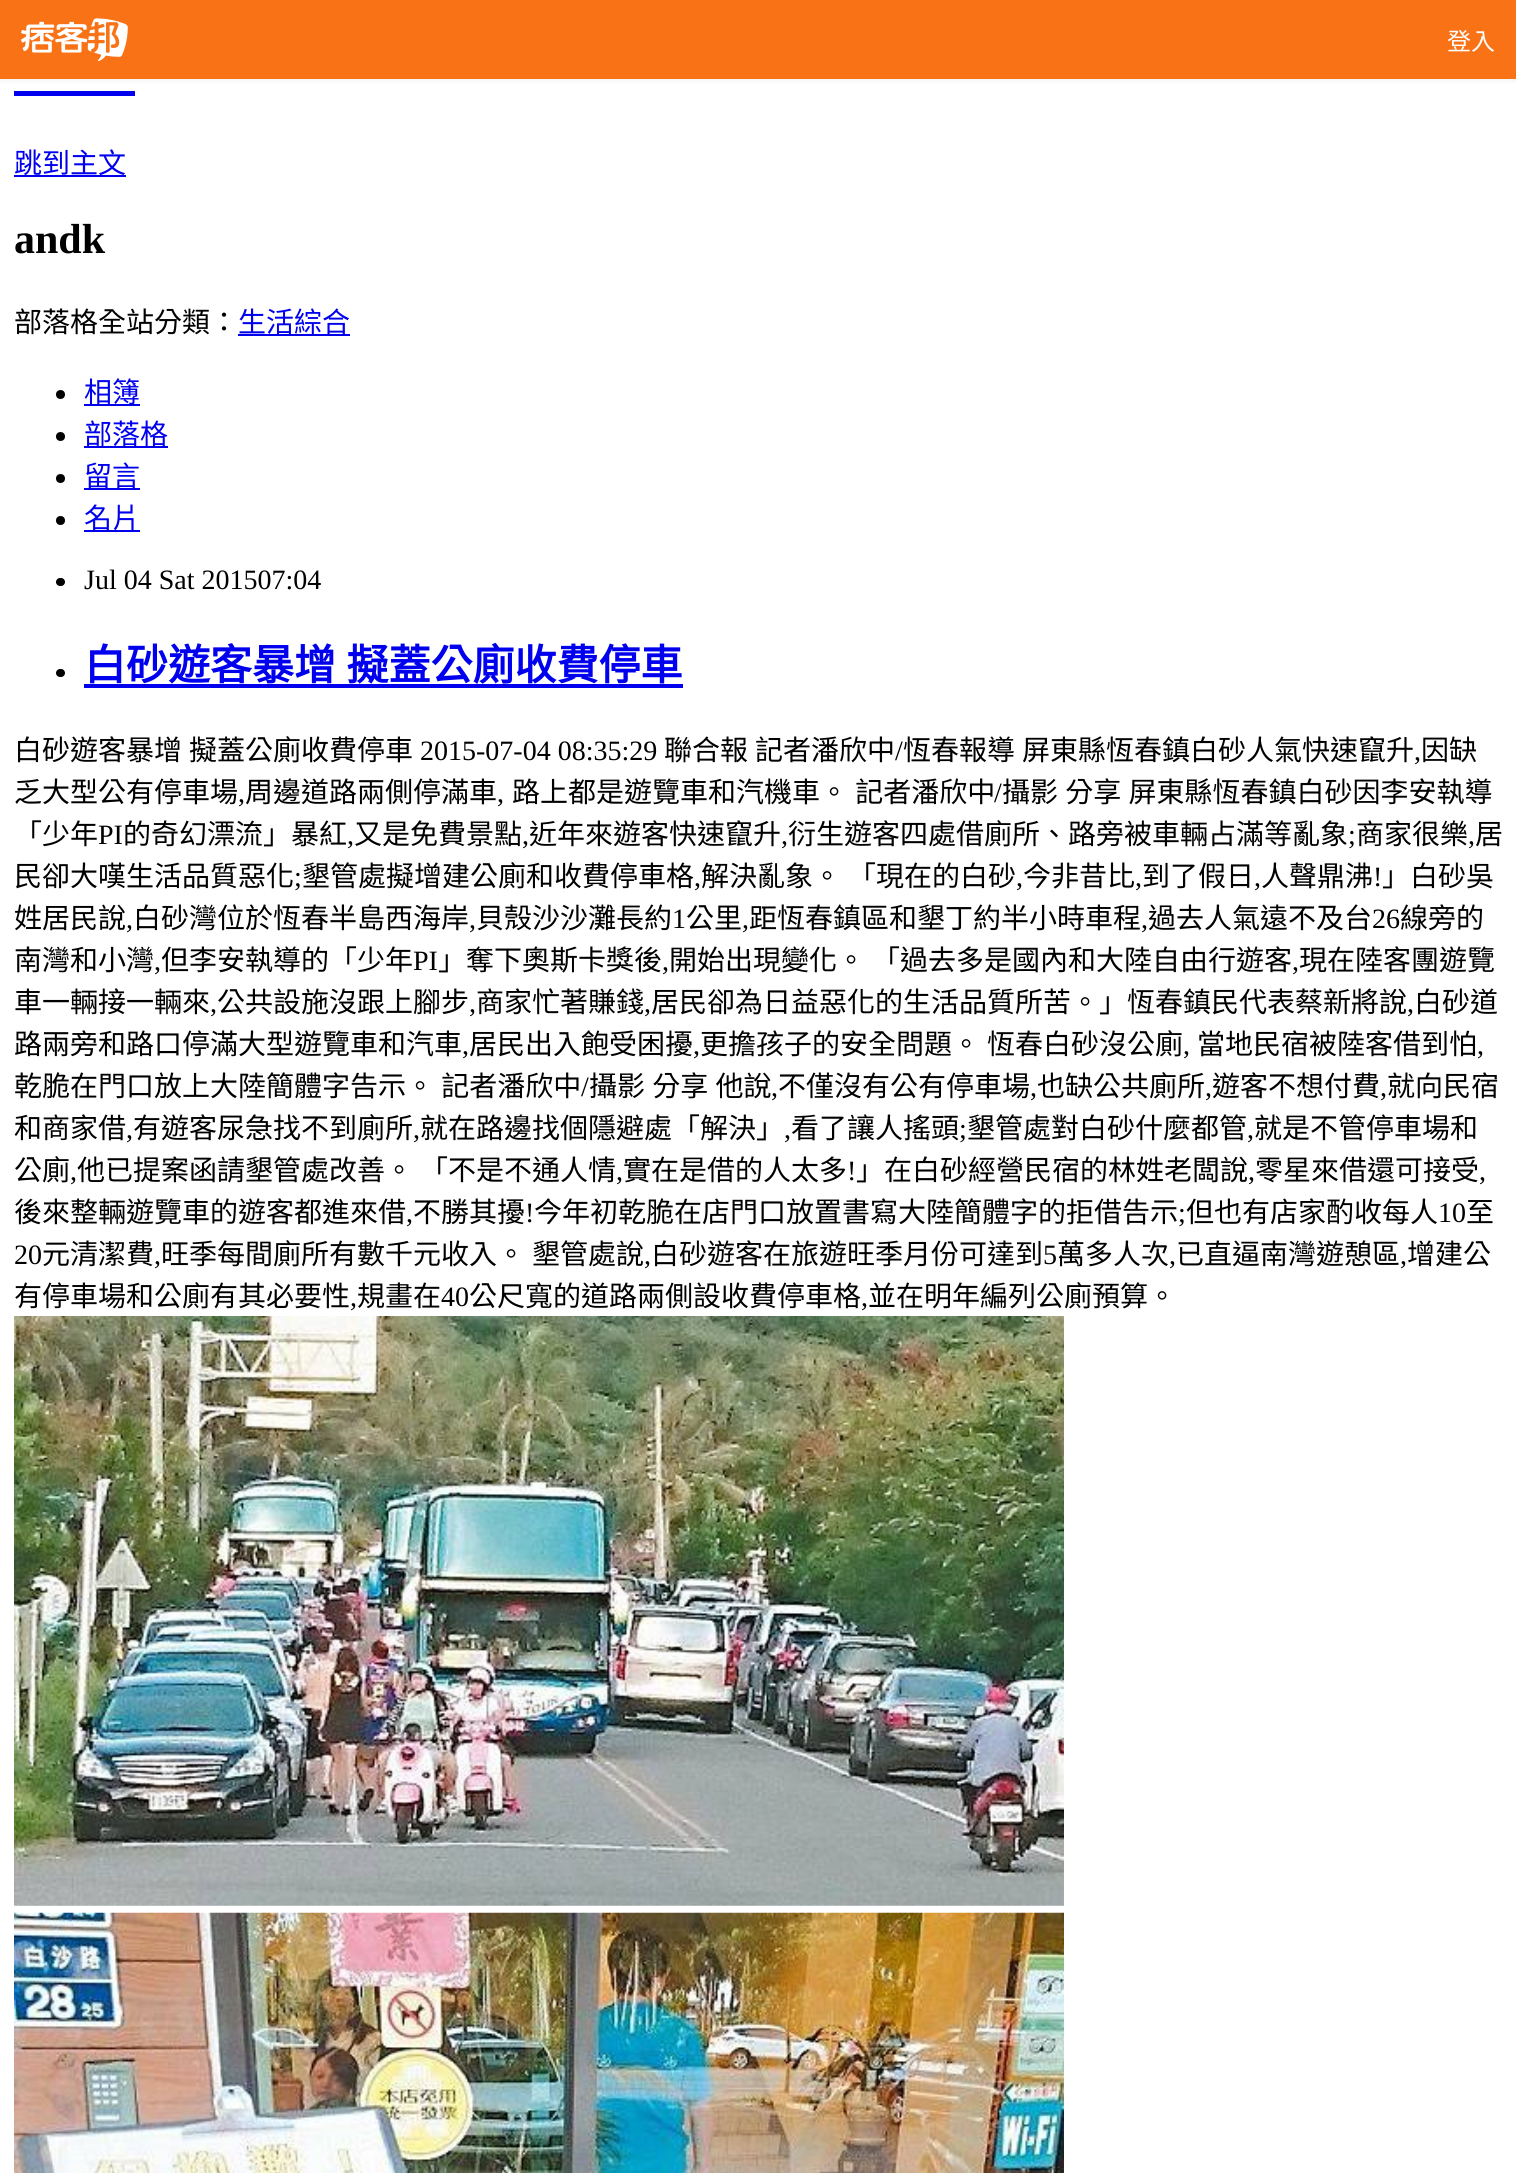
#include <cairo.h>
#include <math.h>
#include <stddef.h>


static void spaced_text(cairo_t *cr, double x, double y, const char *s, double letter, double word) {
    cairo_move_to(cr, x, y);
    while (*s) {
        char ch[5] = {0};
        int n = 0;
        do ch[n++] = *s++; while ((*s & 0xC0) == 0x80);
        cairo_show_text(cr, ch);
        cairo_rel_move_to(cr, letter + word * (*ch == ' '), 0);
    }
}

static void round_rect(cairo_t *cr, double x, double y, double w, double h, double r) {
    cairo_new_sub_path(cr);
    cairo_arc(cr, x + w - r, y + h - r, r, 0, M_PI / 2);
    cairo_arc(cr, x + r, y + h - r, r, M_PI / 2, M_PI);
    cairo_arc(cr, x + r, y + r, r, M_PI, 1.5 * M_PI);
    cairo_arc(cr, x + w - r, y + r, r, 1.5 * M_PI, 2 * M_PI);
    cairo_close_path(cr);
}

static void shadow(cairo_t *cr, double x, double y, double w, double h, double r, double blur, double alpha) {
    cairo_push_group_with_content(cr, CAIRO_CONTENT_ALPHA);
    cairo_set_operator(cr, CAIRO_OPERATOR_SOURCE);
    for (int i = 15; i >= -15 && fmin(w, h) + blur * i / 3 > 0; i -= 2) {
        double e = blur * i / 6;
        cairo_set_source_rgba(cr, 0, 0, 0, alpha * erfc((i - 1) / 8.5) / 2);
        round_rect(cr, x - e, y - e, w + 2 * e, h + 2 * e, fmax(0, fmin(r + e + blur * .6, fmin(w, h) / 2 + e)));
        cairo_fill(cr);
    }
    cairo_pattern_t *soft = cairo_pop_group(cr);
    cairo_mask(cr, soft);
    cairo_pattern_destroy(soft);
}

static void picture(cairo_t *cr, const char *path, double x, double y, double w, double h) {
    cairo_surface_t *image = cairo_image_surface_create_from_png(path);
    cairo_save(cr);
    cairo_set_source_surface(cr, image, x, y);
    cairo_rectangle(cr, x, y, w, h);
    cairo_fill(cr);
    cairo_restore(cr);
    cairo_surface_destroy(image);
}

int main(void) {
    cairo_surface_t *surface = cairo_image_surface_create(CAIRO_FORMAT_RGB24, 1516, 2173);
    cairo_t *cr = cairo_create(surface);
    cairo_font_options_t *options = cairo_font_options_create();
    cairo_font_options_set_hint_metrics(options, CAIRO_HINT_METRICS_OFF);
    cairo_font_options_set_hint_style(options, CAIRO_HINT_STYLE_NONE);
    cairo_set_font_options(cr, options);
    cairo_set_miter_limit(cr, 4);
    cairo_set_source_rgb(cr, 1, 1, 1);
    cairo_paint(cr);
    cairo_set_source_rgb(cr, 0, 0, 0);
    shadow(cr, 0, 2, 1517, 79, 0, 2, 0.05);
    cairo_set_source_rgb(cr, 0.976, 0.451, 0.086);
    cairo_rectangle(cr, 0, 0, 1516, 79);
    cairo_fill(cr);
    picture(cr, "img1.png", 21, 18, 107, 43);
    cairo_select_font_face(cr, "Noto Sans CJK TC", CAIRO_FONT_SLANT_NORMAL, CAIRO_FONT_WEIGHT_NORMAL);
    cairo_set_font_size(cr, 24);
    cairo_set_source_rgb(cr, 1, 1, 1);
    cairo_move_to(cr, 1447, 50);
    cairo_show_text(cr, "登入");
    cairo_set_source_rgb(cr, 0, 0, 0.933);
    cairo_rectangle(cr, 14, 91, 121, 5);
    cairo_fill(cr);
    cairo_rectangle(cr, 14, 175, 112, 2);
    cairo_fill(cr);
    cairo_set_font_size(cr, 28);
    cairo_move_to(cr, 14, 173);
    cairo_show_text(cr, "跳到主文");
    cairo_select_font_face(cr, "Liberation Serif", CAIRO_FONT_SLANT_NORMAL, CAIRO_FONT_WEIGHT_BOLD);
    cairo_set_font_size(cr, 42);
    cairo_set_source_rgb(cr, 0, 0, 0);
    cairo_move_to(cr, 14, 253);
    cairo_show_text(cr, "andk");
    cairo_select_font_face(cr, "Noto Sans CJK TC", CAIRO_FONT_SLANT_NORMAL, CAIRO_FONT_WEIGHT_NORMAL);
    cairo_set_font_size(cr, 28);
    cairo_move_to(cr, 14, 332);
    cairo_show_text(cr, "部落格全站分類：");
    cairo_set_source_rgb(cr, 0, 0, 0.933);
    cairo_rectangle(cr, 238, 334, 112, 2);
    cairo_fill(cr);
    cairo_move_to(cr, 238, 332);
    cairo_show_text(cr, "生活綜合");
    cairo_set_source_rgb(cr, 0, 0, 0);
    cairo_new_path(cr);
    cairo_arc(cr, 60.5, 394.5, 4.5, 0, 2 * M_PI);
    cairo_fill(cr);
    cairo_set_source_rgb(cr, 0, 0, 0.933);
    cairo_rectangle(cr, 84, 404, 56, 2);
    cairo_fill(cr);
    cairo_move_to(cr, 84, 402);
    cairo_show_text(cr, "相簿");
    cairo_set_source_rgb(cr, 0, 0, 0);
    cairo_new_path(cr);
    cairo_arc(cr, 60.5, 436.5, 4.5, 0, 2 * M_PI);
    cairo_fill(cr);
    cairo_set_source_rgb(cr, 0, 0, 0.933);
    cairo_rectangle(cr, 84, 446, 84, 2);
    cairo_fill(cr);
    cairo_move_to(cr, 84, 444);
    cairo_show_text(cr, "部落格");
    cairo_set_source_rgb(cr, 0, 0, 0);
    cairo_new_path(cr);
    cairo_arc(cr, 60.5, 478.5, 4.5, 0, 2 * M_PI);
    cairo_fill(cr);
    cairo_set_source_rgb(cr, 0, 0, 0.933);
    cairo_rectangle(cr, 84, 488, 56, 2);
    cairo_fill(cr);
    cairo_move_to(cr, 84, 486);
    cairo_show_text(cr, "留言");
    cairo_set_source_rgb(cr, 0, 0, 0);
    cairo_new_path(cr);
    cairo_arc(cr, 60.5, 520.5, 4.5, 0, 2 * M_PI);
    cairo_fill(cr);
    cairo_set_source_rgb(cr, 0, 0, 0.933);
    cairo_rectangle(cr, 84, 530, 56, 2);
    cairo_fill(cr);
    cairo_move_to(cr, 84, 528);
    cairo_show_text(cr, "名片");
    cairo_set_source_rgb(cr, 0, 0, 0);
    round_rect(cr, 56, 578, 9, 8, 4);
    cairo_fill(cr);
    cairo_select_font_face(cr, "Liberation Serif", CAIRO_FONT_SLANT_NORMAL, CAIRO_FONT_WEIGHT_NORMAL);
    cairo_move_to(cr, 84, 589);
    cairo_show_text(cr, "Jul 04 Sat 201507:04");
    round_rect(cr, 56, 669, 9, 8, 4);
    cairo_fill(cr);
    cairo_select_font_face(cr, "Noto Sans CJK TC", CAIRO_FONT_SLANT_NORMAL, CAIRO_FONT_WEIGHT_BOLD);
    cairo_set_font_size(cr, 42);
    cairo_set_source_rgb(cr, 0, 0, 0.933);
    spaced_text(cr, 84, 680, "白砂遊客暴增 擬蓋公廁收費停車", 0, 1);
    cairo_rectangle(cr, 84, 684, 599, 4);
    cairo_fill(cr);
    cairo_select_font_face(cr, "Noto Sans CJK TC", CAIRO_FONT_SLANT_NORMAL, CAIRO_FONT_WEIGHT_NORMAL);
    cairo_set_font_size(cr, 28);
    cairo_set_source_rgb(cr, 0, 0, 0);
    cairo_move_to(cr, 14, 760);
    cairo_show_text(cr, "白砂遊客暴增");
    cairo_move_to(cr, 189, 760);
    cairo_show_text(cr, "擬蓋公廁收費停車");
    cairo_select_font_face(cr, "Liberation Serif", CAIRO_FONT_SLANT_NORMAL, CAIRO_FONT_WEIGHT_NORMAL);
    cairo_move_to(cr, 420, 760);
    cairo_show_text(cr, "2015-07-04 08:35:29");
    cairo_select_font_face(cr, "Noto Sans CJK TC", CAIRO_FONT_SLANT_NORMAL, CAIRO_FONT_WEIGHT_NORMAL);
    cairo_move_to(cr, 664, 760);
    cairo_show_text(cr, "聯合報");
    cairo_move_to(cr, 755, 760);
    cairo_show_text(cr, "記者潘欣中");
    cairo_select_font_face(cr, "Liberation Serif", CAIRO_FONT_SLANT_NORMAL, CAIRO_FONT_WEIGHT_NORMAL);
    cairo_move_to(cr, 895, 760);
    cairo_show_text(cr, "/");
    cairo_select_font_face(cr, "Noto Sans CJK TC", CAIRO_FONT_SLANT_NORMAL, CAIRO_FONT_WEIGHT_NORMAL);
    cairo_move_to(cr, 903, 760);
    cairo_show_text(cr, "恆春報導");
    cairo_move_to(cr, 1022, 760);
    cairo_show_text(cr, "屏東縣恆春鎮白砂人氣快速竄升");
    cairo_select_font_face(cr, "Liberation Serif", CAIRO_FONT_SLANT_NORMAL, CAIRO_FONT_WEIGHT_NORMAL);
    cairo_move_to(cr, 1414, 760);
    cairo_show_text(cr, ",");
    cairo_select_font_face(cr, "Noto Sans CJK TC", CAIRO_FONT_SLANT_NORMAL, CAIRO_FONT_WEIGHT_NORMAL);
    cairo_move_to(cr, 1421, 760);
    cairo_show_text(cr, "因缺");
    cairo_move_to(cr, 14, 802);
    cairo_show_text(cr, "乏大型公有停車場");
    cairo_select_font_face(cr, "Liberation Serif", CAIRO_FONT_SLANT_NORMAL, CAIRO_FONT_WEIGHT_NORMAL);
    cairo_move_to(cr, 238, 802);
    cairo_show_text(cr, ",");
    cairo_select_font_face(cr, "Noto Sans CJK TC", CAIRO_FONT_SLANT_NORMAL, CAIRO_FONT_WEIGHT_NORMAL);
    cairo_move_to(cr, 245, 802);
    cairo_show_text(cr, "周邊道路兩側停滿車");
    cairo_select_font_face(cr, "Liberation Serif", CAIRO_FONT_SLANT_NORMAL, CAIRO_FONT_WEIGHT_NORMAL);
    cairo_move_to(cr, 497, 802);
    cairo_show_text(cr, ",");
    cairo_select_font_face(cr, "Noto Sans CJK TC", CAIRO_FONT_SLANT_NORMAL, CAIRO_FONT_WEIGHT_NORMAL);
    spaced_text(cr, 512, 802, "路上都是遊覽車和汽機車。 記者潘欣中", 0, 1);
    cairo_select_font_face(cr, "Liberation Serif", CAIRO_FONT_SLANT_NORMAL, CAIRO_FONT_WEIGHT_NORMAL);
    cairo_move_to(cr, 994, 802);
    cairo_show_text(cr, "/");
    cairo_select_font_face(cr, "Noto Sans CJK TC", CAIRO_FONT_SLANT_NORMAL, CAIRO_FONT_WEIGHT_NORMAL);
    spaced_text(cr, 1002, 802, "攝影 分享 屏東縣恆春鎮白砂因李安執導", 0, 1);
    cairo_move_to(cr, 14, 844);
    cairo_show_text(cr, "「少年");
    cairo_select_font_face(cr, "Liberation Serif", CAIRO_FONT_SLANT_NORMAL, CAIRO_FONT_WEIGHT_NORMAL);
    cairo_move_to(cr, 98, 844);
    cairo_show_text(cr, "PI");
    cairo_select_font_face(cr, "Noto Sans CJK TC", CAIRO_FONT_SLANT_NORMAL, CAIRO_FONT_WEIGHT_NORMAL);
    cairo_move_to(cr, 123, 844);
    cairo_show_text(cr, "的奇幻漂流」暴紅");
    cairo_select_font_face(cr, "Liberation Serif", CAIRO_FONT_SLANT_NORMAL, CAIRO_FONT_WEIGHT_NORMAL);
    cairo_move_to(cr, 347, 844);
    cairo_show_text(cr, ",");
    cairo_select_font_face(cr, "Noto Sans CJK TC", CAIRO_FONT_SLANT_NORMAL, CAIRO_FONT_WEIGHT_NORMAL);
    cairo_move_to(cr, 354, 844);
    cairo_show_text(cr, "又是免費景點");
    cairo_select_font_face(cr, "Liberation Serif", CAIRO_FONT_SLANT_NORMAL, CAIRO_FONT_WEIGHT_NORMAL);
    cairo_move_to(cr, 522, 844);
    cairo_show_text(cr, ",");
    cairo_select_font_face(cr, "Noto Sans CJK TC", CAIRO_FONT_SLANT_NORMAL, CAIRO_FONT_WEIGHT_NORMAL);
    cairo_move_to(cr, 529, 844);
    cairo_show_text(cr, "近年來遊客快速竄升");
    cairo_select_font_face(cr, "Liberation Serif", CAIRO_FONT_SLANT_NORMAL, CAIRO_FONT_WEIGHT_NORMAL);
    cairo_move_to(cr, 781, 844);
    cairo_show_text(cr, ",");
    cairo_select_font_face(cr, "Noto Sans CJK TC", CAIRO_FONT_SLANT_NORMAL, CAIRO_FONT_WEIGHT_NORMAL);
    cairo_move_to(cr, 788, 844);
    cairo_show_text(cr, "衍生遊客四處借廁所、路旁被車輛占滿等亂象");
    cairo_select_font_face(cr, "Liberation Serif", CAIRO_FONT_SLANT_NORMAL, CAIRO_FONT_WEIGHT_NORMAL);
    cairo_move_to(cr, 1348, 844);
    cairo_show_text(cr, ";");
    cairo_select_font_face(cr, "Noto Sans CJK TC", CAIRO_FONT_SLANT_NORMAL, CAIRO_FONT_WEIGHT_NORMAL);
    cairo_move_to(cr, 1356, 844);
    cairo_show_text(cr, "商家很樂");
    cairo_select_font_face(cr, "Liberation Serif", CAIRO_FONT_SLANT_NORMAL, CAIRO_FONT_WEIGHT_NORMAL);
    cairo_move_to(cr, 1468, 844);
    cairo_show_text(cr, ",");
    cairo_select_font_face(cr, "Noto Sans CJK TC", CAIRO_FONT_SLANT_NORMAL, CAIRO_FONT_WEIGHT_NORMAL);
    cairo_move_to(cr, 1475, 844);
    cairo_show_text(cr, "居");
    cairo_move_to(cr, 14, 886);
    cairo_show_text(cr, "民卻大嘆生活品質惡化");
    cairo_select_font_face(cr, "Liberation Serif", CAIRO_FONT_SLANT_NORMAL, CAIRO_FONT_WEIGHT_NORMAL);
    cairo_move_to(cr, 294, 886);
    cairo_show_text(cr, ";");
    cairo_select_font_face(cr, "Noto Sans CJK TC", CAIRO_FONT_SLANT_NORMAL, CAIRO_FONT_WEIGHT_NORMAL);
    cairo_move_to(cr, 302, 886);
    cairo_show_text(cr, "墾管處擬增建公廁和收費停車格");
    cairo_select_font_face(cr, "Liberation Serif", CAIRO_FONT_SLANT_NORMAL, CAIRO_FONT_WEIGHT_NORMAL);
    cairo_move_to(cr, 694, 886);
    cairo_show_text(cr, ",");
    cairo_select_font_face(cr, "Noto Sans CJK TC", CAIRO_FONT_SLANT_NORMAL, CAIRO_FONT_WEIGHT_NORMAL);
    cairo_move_to(cr, 701, 886);
    cairo_show_text(cr, "解決亂象。");
    cairo_move_to(cr, 848, 886);
    cairo_show_text(cr, "「現在的白砂");
    cairo_select_font_face(cr, "Liberation Serif", CAIRO_FONT_SLANT_NORMAL, CAIRO_FONT_WEIGHT_NORMAL);
    cairo_move_to(cr, 1016, 886);
    cairo_show_text(cr, ",");
    cairo_select_font_face(cr, "Noto Sans CJK TC", CAIRO_FONT_SLANT_NORMAL, CAIRO_FONT_WEIGHT_NORMAL);
    cairo_move_to(cr, 1023, 886);
    cairo_show_text(cr, "今非昔比");
    cairo_select_font_face(cr, "Liberation Serif", CAIRO_FONT_SLANT_NORMAL, CAIRO_FONT_WEIGHT_NORMAL);
    cairo_move_to(cr, 1135, 886);
    cairo_show_text(cr, ",");
    cairo_select_font_face(cr, "Noto Sans CJK TC", CAIRO_FONT_SLANT_NORMAL, CAIRO_FONT_WEIGHT_NORMAL);
    cairo_move_to(cr, 1142, 886);
    cairo_show_text(cr, "到了假日");
    cairo_select_font_face(cr, "Liberation Serif", CAIRO_FONT_SLANT_NORMAL, CAIRO_FONT_WEIGHT_NORMAL);
    cairo_move_to(cr, 1254, 886);
    cairo_show_text(cr, ",");
    cairo_select_font_face(cr, "Noto Sans CJK TC", CAIRO_FONT_SLANT_NORMAL, CAIRO_FONT_WEIGHT_NORMAL);
    cairo_move_to(cr, 1261, 886);
    cairo_show_text(cr, "人聲鼎沸");
    cairo_select_font_face(cr, "Liberation Serif", CAIRO_FONT_SLANT_NORMAL, CAIRO_FONT_WEIGHT_NORMAL);
    cairo_move_to(cr, 1373, 886);
    cairo_show_text(cr, "!");
    cairo_select_font_face(cr, "Noto Sans CJK TC", CAIRO_FONT_SLANT_NORMAL, CAIRO_FONT_WEIGHT_NORMAL);
    cairo_move_to(cr, 1382, 886);
    cairo_show_text(cr, "」白砂吳");
    cairo_move_to(cr, 14, 928);
    cairo_show_text(cr, "姓居民說");
    cairo_select_font_face(cr, "Liberation Serif", CAIRO_FONT_SLANT_NORMAL, CAIRO_FONT_WEIGHT_NORMAL);
    cairo_move_to(cr, 126, 928);
    cairo_show_text(cr, ",");
    cairo_select_font_face(cr, "Noto Sans CJK TC", CAIRO_FONT_SLANT_NORMAL, CAIRO_FONT_WEIGHT_NORMAL);
    cairo_move_to(cr, 133, 928);
    cairo_show_text(cr, "白砂灣位於恆春半島西海岸");
    cairo_select_font_face(cr, "Liberation Serif", CAIRO_FONT_SLANT_NORMAL, CAIRO_FONT_WEIGHT_NORMAL);
    cairo_move_to(cr, 469, 928);
    cairo_show_text(cr, ",");
    cairo_select_font_face(cr, "Noto Sans CJK TC", CAIRO_FONT_SLANT_NORMAL, CAIRO_FONT_WEIGHT_NORMAL);
    cairo_move_to(cr, 476, 928);
    cairo_show_text(cr, "貝殼沙沙灘長約");
    cairo_select_font_face(cr, "Liberation Serif", CAIRO_FONT_SLANT_NORMAL, CAIRO_FONT_WEIGHT_NORMAL);
    cairo_move_to(cr, 672, 928);
    cairo_show_text(cr, "1");
    cairo_select_font_face(cr, "Noto Sans CJK TC", CAIRO_FONT_SLANT_NORMAL, CAIRO_FONT_WEIGHT_NORMAL);
    cairo_move_to(cr, 686, 928);
    cairo_show_text(cr, "公里");
    cairo_select_font_face(cr, "Liberation Serif", CAIRO_FONT_SLANT_NORMAL, CAIRO_FONT_WEIGHT_NORMAL);
    cairo_move_to(cr, 742, 928);
    cairo_show_text(cr, ",");
    cairo_select_font_face(cr, "Noto Sans CJK TC", CAIRO_FONT_SLANT_NORMAL, CAIRO_FONT_WEIGHT_NORMAL);
    cairo_move_to(cr, 749, 928);
    cairo_show_text(cr, "距恆春鎮區和墾丁約半小時車程");
    cairo_select_font_face(cr, "Liberation Serif", CAIRO_FONT_SLANT_NORMAL, CAIRO_FONT_WEIGHT_NORMAL);
    cairo_move_to(cr, 1141, 928);
    cairo_show_text(cr, ",");
    cairo_select_font_face(cr, "Noto Sans CJK TC", CAIRO_FONT_SLANT_NORMAL, CAIRO_FONT_WEIGHT_NORMAL);
    cairo_move_to(cr, 1148, 928);
    cairo_show_text(cr, "過去人氣遠不及台");
    cairo_select_font_face(cr, "Liberation Serif", CAIRO_FONT_SLANT_NORMAL, CAIRO_FONT_WEIGHT_NORMAL);
    cairo_move_to(cr, 1372, 928);
    cairo_show_text(cr, "26");
    cairo_select_font_face(cr, "Noto Sans CJK TC", CAIRO_FONT_SLANT_NORMAL, CAIRO_FONT_WEIGHT_NORMAL);
    cairo_move_to(cr, 1400, 928);
    cairo_show_text(cr, "線旁的");
    cairo_move_to(cr, 14, 970);
    cairo_show_text(cr, "南灣和小灣");
    cairo_move_to(cr, 161, 970);
    cairo_show_text(cr, "但李安執導的「少年");
    cairo_select_font_face(cr, "Liberation Serif", CAIRO_FONT_SLANT_NORMAL, CAIRO_FONT_WEIGHT_NORMAL);
    cairo_move_to(cr, 413, 970);
    cairo_show_text(cr, "PI");
    cairo_select_font_face(cr, "Noto Sans CJK TC", CAIRO_FONT_SLANT_NORMAL, CAIRO_FONT_WEIGHT_NORMAL);
    cairo_move_to(cr, 438, 970);
    cairo_show_text(cr, "」奪下奧斯卡獎後");
    cairo_move_to(cr, 669, 970);
    cairo_show_text(cr, "開始出現變化。");
    cairo_move_to(cr, 872, 970);
    cairo_show_text(cr, "「過去多是國內和大陸自由行遊客");
    cairo_move_to(cr, 1299, 970);
    cairo_show_text(cr, "現在陸客團遊覽");
    cairo_select_font_face(cr, "Liberation Serif", CAIRO_FONT_SLANT_NORMAL, CAIRO_FONT_WEIGHT_NORMAL);
    cairo_move_to(cr, 154, 970);
    cairo_show_text(cr, ",");
    cairo_move_to(cr, 662, 970);
    cairo_show_text(cr, ",");
    cairo_move_to(cr, 1292, 970);
    cairo_show_text(cr, ",");
    cairo_select_font_face(cr, "Noto Sans CJK TC", CAIRO_FONT_SLANT_NORMAL, CAIRO_FONT_WEIGHT_NORMAL);
    cairo_move_to(cr, 14, 1012);
    cairo_show_text(cr, "車一輛接一輛來");
    cairo_select_font_face(cr, "Liberation Serif", CAIRO_FONT_SLANT_NORMAL, CAIRO_FONT_WEIGHT_NORMAL);
    cairo_move_to(cr, 210, 1012);
    cairo_show_text(cr, ",");
    cairo_select_font_face(cr, "Noto Sans CJK TC", CAIRO_FONT_SLANT_NORMAL, CAIRO_FONT_WEIGHT_NORMAL);
    cairo_move_to(cr, 217, 1012);
    cairo_show_text(cr, "公共設施沒跟上腳步");
    cairo_select_font_face(cr, "Liberation Serif", CAIRO_FONT_SLANT_NORMAL, CAIRO_FONT_WEIGHT_NORMAL);
    cairo_move_to(cr, 469, 1012);
    cairo_show_text(cr, ",");
    cairo_select_font_face(cr, "Noto Sans CJK TC", CAIRO_FONT_SLANT_NORMAL, CAIRO_FONT_WEIGHT_NORMAL);
    cairo_move_to(cr, 476, 1012);
    cairo_show_text(cr, "商家忙著賺錢");
    cairo_select_font_face(cr, "Liberation Serif", CAIRO_FONT_SLANT_NORMAL, CAIRO_FONT_WEIGHT_NORMAL);
    cairo_move_to(cr, 644, 1012);
    cairo_show_text(cr, ",");
    cairo_select_font_face(cr, "Noto Sans CJK TC", CAIRO_FONT_SLANT_NORMAL, CAIRO_FONT_WEIGHT_NORMAL);
    cairo_move_to(cr, 651, 1012);
    cairo_show_text(cr, "居民卻為日益惡化的生活品質所苦。」恆春鎮民代表蔡新將說");
    cairo_select_font_face(cr, "Liberation Serif", CAIRO_FONT_SLANT_NORMAL, CAIRO_FONT_WEIGHT_NORMAL);
    cairo_move_to(cr, 1407, 1012);
    cairo_show_text(cr, ",");
    cairo_select_font_face(cr, "Noto Sans CJK TC", CAIRO_FONT_SLANT_NORMAL, CAIRO_FONT_WEIGHT_NORMAL);
    cairo_move_to(cr, 1414, 1012);
    cairo_show_text(cr, "白砂道");
    cairo_move_to(cr, 14, 1054);
    cairo_show_text(cr, "路兩旁和路口停滿大型遊覽車和汽車");
    cairo_select_font_face(cr, "Liberation Serif", CAIRO_FONT_SLANT_NORMAL, CAIRO_FONT_WEIGHT_NORMAL);
    cairo_move_to(cr, 462, 1054);
    cairo_show_text(cr, ",");
    cairo_select_font_face(cr, "Noto Sans CJK TC", CAIRO_FONT_SLANT_NORMAL, CAIRO_FONT_WEIGHT_NORMAL);
    cairo_move_to(cr, 469, 1054);
    cairo_show_text(cr, "居民出入飽受困擾");
    cairo_select_font_face(cr, "Liberation Serif", CAIRO_FONT_SLANT_NORMAL, CAIRO_FONT_WEIGHT_NORMAL);
    cairo_move_to(cr, 693, 1054);
    cairo_show_text(cr, ",");
    cairo_select_font_face(cr, "Noto Sans CJK TC", CAIRO_FONT_SLANT_NORMAL, CAIRO_FONT_WEIGHT_NORMAL);
    cairo_move_to(cr, 700, 1054);
    cairo_show_text(cr, "更擔孩子的安全問題。");
    cairo_move_to(cr, 987, 1054);
    cairo_show_text(cr, "恆春白砂沒公廁");
    cairo_select_font_face(cr, "Liberation Serif", CAIRO_FONT_SLANT_NORMAL, CAIRO_FONT_WEIGHT_NORMAL);
    cairo_move_to(cr, 1183, 1054);
    cairo_show_text(cr, ",");
    cairo_select_font_face(cr, "Noto Sans CJK TC", CAIRO_FONT_SLANT_NORMAL, CAIRO_FONT_WEIGHT_NORMAL);
    cairo_move_to(cr, 1197, 1054);
    cairo_show_text(cr, "當地民宿被陸客借到怕");
    cairo_select_font_face(cr, "Liberation Serif", CAIRO_FONT_SLANT_NORMAL, CAIRO_FONT_WEIGHT_NORMAL);
    cairo_move_to(cr, 1477, 1054);
    cairo_show_text(cr, ",");
    cairo_select_font_face(cr, "Noto Sans CJK TC", CAIRO_FONT_SLANT_NORMAL, CAIRO_FONT_WEIGHT_NORMAL);
    spaced_text(cr, 14, 1096, "乾脆在門口放上大陸簡體字告示。 記者潘欣中", 0, 1);
    cairo_select_font_face(cr, "Liberation Serif", CAIRO_FONT_SLANT_NORMAL, CAIRO_FONT_WEIGHT_NORMAL);
    cairo_move_to(cr, 581, 1096);
    cairo_show_text(cr, "/");
    cairo_select_font_face(cr, "Noto Sans CJK TC", CAIRO_FONT_SLANT_NORMAL, CAIRO_FONT_WEIGHT_NORMAL);
    spaced_text(cr, 589, 1096, "攝影 分享 他說", 0, 1);
    cairo_select_font_face(cr, "Liberation Serif", CAIRO_FONT_SLANT_NORMAL, CAIRO_FONT_WEIGHT_NORMAL);
    cairo_move_to(cr, 771, 1096);
    cairo_show_text(cr, ",");
    cairo_select_font_face(cr, "Noto Sans CJK TC", CAIRO_FONT_SLANT_NORMAL, CAIRO_FONT_WEIGHT_NORMAL);
    cairo_move_to(cr, 778, 1096);
    cairo_show_text(cr, "不僅沒有公有停車場");
    cairo_select_font_face(cr, "Liberation Serif", CAIRO_FONT_SLANT_NORMAL, CAIRO_FONT_WEIGHT_NORMAL);
    cairo_move_to(cr, 1030, 1096);
    cairo_show_text(cr, ",");
    cairo_select_font_face(cr, "Noto Sans CJK TC", CAIRO_FONT_SLANT_NORMAL, CAIRO_FONT_WEIGHT_NORMAL);
    cairo_move_to(cr, 1037, 1096);
    cairo_show_text(cr, "也缺公共廁所");
    cairo_select_font_face(cr, "Liberation Serif", CAIRO_FONT_SLANT_NORMAL, CAIRO_FONT_WEIGHT_NORMAL);
    cairo_move_to(cr, 1205, 1096);
    cairo_show_text(cr, ",");
    cairo_select_font_face(cr, "Noto Sans CJK TC", CAIRO_FONT_SLANT_NORMAL, CAIRO_FONT_WEIGHT_NORMAL);
    cairo_move_to(cr, 1212, 1096);
    cairo_show_text(cr, "遊客不想付費");
    cairo_select_font_face(cr, "Liberation Serif", CAIRO_FONT_SLANT_NORMAL, CAIRO_FONT_WEIGHT_NORMAL);
    cairo_move_to(cr, 1380, 1096);
    cairo_show_text(cr, ",");
    cairo_select_font_face(cr, "Noto Sans CJK TC", CAIRO_FONT_SLANT_NORMAL, CAIRO_FONT_WEIGHT_NORMAL);
    cairo_move_to(cr, 1387, 1096);
    cairo_show_text(cr, "就向民宿");
    cairo_move_to(cr, 14, 1138);
    cairo_show_text(cr, "和商家借");
    cairo_select_font_face(cr, "Liberation Serif", CAIRO_FONT_SLANT_NORMAL, CAIRO_FONT_WEIGHT_NORMAL);
    cairo_move_to(cr, 126, 1138);
    cairo_show_text(cr, ",");
    cairo_select_font_face(cr, "Noto Sans CJK TC", CAIRO_FONT_SLANT_NORMAL, CAIRO_FONT_WEIGHT_NORMAL);
    cairo_move_to(cr, 133, 1138);
    cairo_show_text(cr, "有遊客尿急找不到廁所");
    cairo_select_font_face(cr, "Liberation Serif", CAIRO_FONT_SLANT_NORMAL, CAIRO_FONT_WEIGHT_NORMAL);
    cairo_move_to(cr, 413, 1138);
    cairo_show_text(cr, ",");
    cairo_select_font_face(cr, "Noto Sans CJK TC", CAIRO_FONT_SLANT_NORMAL, CAIRO_FONT_WEIGHT_NORMAL);
    cairo_move_to(cr, 420, 1138);
    cairo_show_text(cr, "就在路邊找個隱避處「解決」");
    cairo_select_font_face(cr, "Liberation Serif", CAIRO_FONT_SLANT_NORMAL, CAIRO_FONT_WEIGHT_NORMAL);
    cairo_move_to(cr, 784, 1138);
    cairo_show_text(cr, ",");
    cairo_select_font_face(cr, "Noto Sans CJK TC", CAIRO_FONT_SLANT_NORMAL, CAIRO_FONT_WEIGHT_NORMAL);
    cairo_move_to(cr, 791, 1138);
    cairo_show_text(cr, "看了讓人搖頭");
    cairo_select_font_face(cr, "Liberation Serif", CAIRO_FONT_SLANT_NORMAL, CAIRO_FONT_WEIGHT_NORMAL);
    cairo_move_to(cr, 959, 1138);
    cairo_show_text(cr, ";");
    cairo_select_font_face(cr, "Noto Sans CJK TC", CAIRO_FONT_SLANT_NORMAL, CAIRO_FONT_WEIGHT_NORMAL);
    cairo_move_to(cr, 967, 1138);
    cairo_show_text(cr, "墾管處對白砂什麼都管");
    cairo_select_font_face(cr, "Liberation Serif", CAIRO_FONT_SLANT_NORMAL, CAIRO_FONT_WEIGHT_NORMAL);
    cairo_move_to(cr, 1247, 1138);
    cairo_show_text(cr, ",");
    cairo_select_font_face(cr, "Noto Sans CJK TC", CAIRO_FONT_SLANT_NORMAL, CAIRO_FONT_WEIGHT_NORMAL);
    cairo_move_to(cr, 1254, 1138);
    cairo_show_text(cr, "就是不管停車場和");
    cairo_move_to(cr, 14, 1180);
    cairo_show_text(cr, "公廁");
    cairo_select_font_face(cr, "Liberation Serif", CAIRO_FONT_SLANT_NORMAL, CAIRO_FONT_WEIGHT_NORMAL);
    cairo_move_to(cr, 70, 1180);
    cairo_show_text(cr, ",");
    cairo_select_font_face(cr, "Noto Sans CJK TC", CAIRO_FONT_SLANT_NORMAL, CAIRO_FONT_WEIGHT_NORMAL);
    cairo_move_to(cr, 77, 1180);
    cairo_show_text(cr, "他已提案函請墾管處改善。");
    cairo_move_to(cr, 420, 1180);
    cairo_show_text(cr, "「不是不通人情");
    cairo_select_font_face(cr, "Liberation Serif", CAIRO_FONT_SLANT_NORMAL, CAIRO_FONT_WEIGHT_NORMAL);
    cairo_move_to(cr, 616, 1180);
    cairo_show_text(cr, ",");
    cairo_select_font_face(cr, "Noto Sans CJK TC", CAIRO_FONT_SLANT_NORMAL, CAIRO_FONT_WEIGHT_NORMAL);
    cairo_move_to(cr, 623, 1180);
    cairo_show_text(cr, "實在是借的人太多");
    cairo_select_font_face(cr, "Liberation Serif", CAIRO_FONT_SLANT_NORMAL, CAIRO_FONT_WEIGHT_NORMAL);
    cairo_move_to(cr, 847, 1180);
    cairo_show_text(cr, "!");
    cairo_select_font_face(cr, "Noto Sans CJK TC", CAIRO_FONT_SLANT_NORMAL, CAIRO_FONT_WEIGHT_NORMAL);
    cairo_move_to(cr, 856, 1180);
    cairo_show_text(cr, "」在白砂經營民宿的林姓老闆說");
    cairo_select_font_face(cr, "Liberation Serif", CAIRO_FONT_SLANT_NORMAL, CAIRO_FONT_WEIGHT_NORMAL);
    cairo_move_to(cr, 1248, 1180);
    cairo_show_text(cr, ",");
    cairo_select_font_face(cr, "Noto Sans CJK TC", CAIRO_FONT_SLANT_NORMAL, CAIRO_FONT_WEIGHT_NORMAL);
    cairo_move_to(cr, 1255, 1180);
    cairo_show_text(cr, "零星來借還可接受");
    cairo_select_font_face(cr, "Liberation Serif", CAIRO_FONT_SLANT_NORMAL, CAIRO_FONT_WEIGHT_NORMAL);
    cairo_move_to(cr, 1479, 1180);
    cairo_show_text(cr, ",");
    cairo_select_font_face(cr, "Noto Sans CJK TC", CAIRO_FONT_SLANT_NORMAL, CAIRO_FONT_WEIGHT_NORMAL);
    cairo_move_to(cr, 14, 1222);
    cairo_show_text(cr, "後來整輛遊覽車的遊客都進來借");
    cairo_select_font_face(cr, "Liberation Serif", CAIRO_FONT_SLANT_NORMAL, CAIRO_FONT_WEIGHT_NORMAL);
    cairo_move_to(cr, 406, 1222);
    cairo_show_text(cr, ",");
    cairo_select_font_face(cr, "Noto Sans CJK TC", CAIRO_FONT_SLANT_NORMAL, CAIRO_FONT_WEIGHT_NORMAL);
    cairo_move_to(cr, 413, 1222);
    cairo_show_text(cr, "不勝其擾");
    cairo_select_font_face(cr, "Liberation Serif", CAIRO_FONT_SLANT_NORMAL, CAIRO_FONT_WEIGHT_NORMAL);
    cairo_move_to(cr, 525, 1222);
    cairo_show_text(cr, "!");
    cairo_select_font_face(cr, "Noto Sans CJK TC", CAIRO_FONT_SLANT_NORMAL, CAIRO_FONT_WEIGHT_NORMAL);
    cairo_move_to(cr, 534, 1222);
    cairo_show_text(cr, "今年初乾脆在店門口放置書寫大陸簡體字的拒借告示");
    cairo_select_font_face(cr, "Liberation Serif", CAIRO_FONT_SLANT_NORMAL, CAIRO_FONT_WEIGHT_NORMAL);
    cairo_move_to(cr, 1178, 1222);
    cairo_show_text(cr, ";");
    cairo_select_font_face(cr, "Noto Sans CJK TC", CAIRO_FONT_SLANT_NORMAL, CAIRO_FONT_WEIGHT_NORMAL);
    cairo_move_to(cr, 1186, 1222);
    cairo_show_text(cr, "但也有店家酌收每人");
    cairo_select_font_face(cr, "Liberation Serif", CAIRO_FONT_SLANT_NORMAL, CAIRO_FONT_WEIGHT_NORMAL);
    cairo_move_to(cr, 1438, 1222);
    cairo_show_text(cr, "10");
    cairo_select_font_face(cr, "Noto Sans CJK TC", CAIRO_FONT_SLANT_NORMAL, CAIRO_FONT_WEIGHT_NORMAL);
    cairo_move_to(cr, 1466, 1222);
    cairo_show_text(cr, "至");
    cairo_select_font_face(cr, "Liberation Serif", CAIRO_FONT_SLANT_NORMAL, CAIRO_FONT_WEIGHT_NORMAL);
    cairo_move_to(cr, 14, 1264);
    cairo_show_text(cr, "20");
    cairo_select_font_face(cr, "Noto Sans CJK TC", CAIRO_FONT_SLANT_NORMAL, CAIRO_FONT_WEIGHT_NORMAL);
    cairo_move_to(cr, 42, 1264);
    cairo_show_text(cr, "元清潔費");
    cairo_select_font_face(cr, "Liberation Serif", CAIRO_FONT_SLANT_NORMAL, CAIRO_FONT_WEIGHT_NORMAL);
    cairo_move_to(cr, 154, 1264);
    cairo_show_text(cr, ",");
    cairo_select_font_face(cr, "Noto Sans CJK TC", CAIRO_FONT_SLANT_NORMAL, CAIRO_FONT_WEIGHT_NORMAL);
    cairo_move_to(cr, 161, 1264);
    cairo_show_text(cr, "旺季每間廁所有數千元收入。");
    cairo_move_to(cr, 532, 1264);
    cairo_show_text(cr, "墾管處說");
    cairo_select_font_face(cr, "Liberation Serif", CAIRO_FONT_SLANT_NORMAL, CAIRO_FONT_WEIGHT_NORMAL);
    cairo_move_to(cr, 644, 1264);
    cairo_show_text(cr, ",");
    cairo_select_font_face(cr, "Noto Sans CJK TC", CAIRO_FONT_SLANT_NORMAL, CAIRO_FONT_WEIGHT_NORMAL);
    cairo_move_to(cr, 651, 1264);
    cairo_show_text(cr, "白砂遊客在旅遊旺季月份可達到");
    cairo_select_font_face(cr, "Liberation Serif", CAIRO_FONT_SLANT_NORMAL, CAIRO_FONT_WEIGHT_NORMAL);
    cairo_move_to(cr, 1043, 1264);
    cairo_show_text(cr, "5");
    cairo_select_font_face(cr, "Noto Sans CJK TC", CAIRO_FONT_SLANT_NORMAL, CAIRO_FONT_WEIGHT_NORMAL);
    cairo_move_to(cr, 1057, 1264);
    cairo_show_text(cr, "萬多人次");
    cairo_select_font_face(cr, "Liberation Serif", CAIRO_FONT_SLANT_NORMAL, CAIRO_FONT_WEIGHT_NORMAL);
    cairo_move_to(cr, 1169, 1264);
    cairo_show_text(cr, ",");
    cairo_select_font_face(cr, "Noto Sans CJK TC", CAIRO_FONT_SLANT_NORMAL, CAIRO_FONT_WEIGHT_NORMAL);
    cairo_move_to(cr, 1176, 1264);
    cairo_show_text(cr, "已直逼南灣遊憩區");
    cairo_select_font_face(cr, "Liberation Serif", CAIRO_FONT_SLANT_NORMAL, CAIRO_FONT_WEIGHT_NORMAL);
    cairo_move_to(cr, 1400, 1264);
    cairo_show_text(cr, ",");
    cairo_select_font_face(cr, "Noto Sans CJK TC", CAIRO_FONT_SLANT_NORMAL, CAIRO_FONT_WEIGHT_NORMAL);
    cairo_move_to(cr, 1407, 1264);
    cairo_show_text(cr, "增建公");
    cairo_move_to(cr, 14, 1306);
    cairo_show_text(cr, "有停車場和公廁有其必要性");
    cairo_select_font_face(cr, "Liberation Serif", CAIRO_FONT_SLANT_NORMAL, CAIRO_FONT_WEIGHT_NORMAL);
    cairo_move_to(cr, 350, 1306);
    cairo_show_text(cr, ",");
    cairo_select_font_face(cr, "Noto Sans CJK TC", CAIRO_FONT_SLANT_NORMAL, CAIRO_FONT_WEIGHT_NORMAL);
    cairo_move_to(cr, 357, 1306);
    cairo_show_text(cr, "規畫在");
    cairo_select_font_face(cr, "Liberation Serif", CAIRO_FONT_SLANT_NORMAL, CAIRO_FONT_WEIGHT_NORMAL);
    cairo_move_to(cr, 441, 1306);
    cairo_show_text(cr, "40");
    cairo_select_font_face(cr, "Noto Sans CJK TC", CAIRO_FONT_SLANT_NORMAL, CAIRO_FONT_WEIGHT_NORMAL);
    cairo_move_to(cr, 469, 1306);
    cairo_show_text(cr, "公尺寬的道路兩側設收費停車格");
    cairo_select_font_face(cr, "Liberation Serif", CAIRO_FONT_SLANT_NORMAL, CAIRO_FONT_WEIGHT_NORMAL);
    cairo_move_to(cr, 861, 1306);
    cairo_show_text(cr, ",");
    cairo_select_font_face(cr, "Noto Sans CJK TC", CAIRO_FONT_SLANT_NORMAL, CAIRO_FONT_WEIGHT_NORMAL);
    cairo_move_to(cr, 868, 1306);
    cairo_show_text(cr, "並在明年編列公廁預算。");
    picture(cr, "img2.png", 14, 1316, 1050, 590);
    picture(cr, "img3.png", 14, 1912, 1050, 261);
    cairo_surface_write_to_png(surface, "page.png");
    cairo_font_options_destroy(options);
    cairo_destroy(cr);
    cairo_surface_destroy(surface);
    return 0;
}
